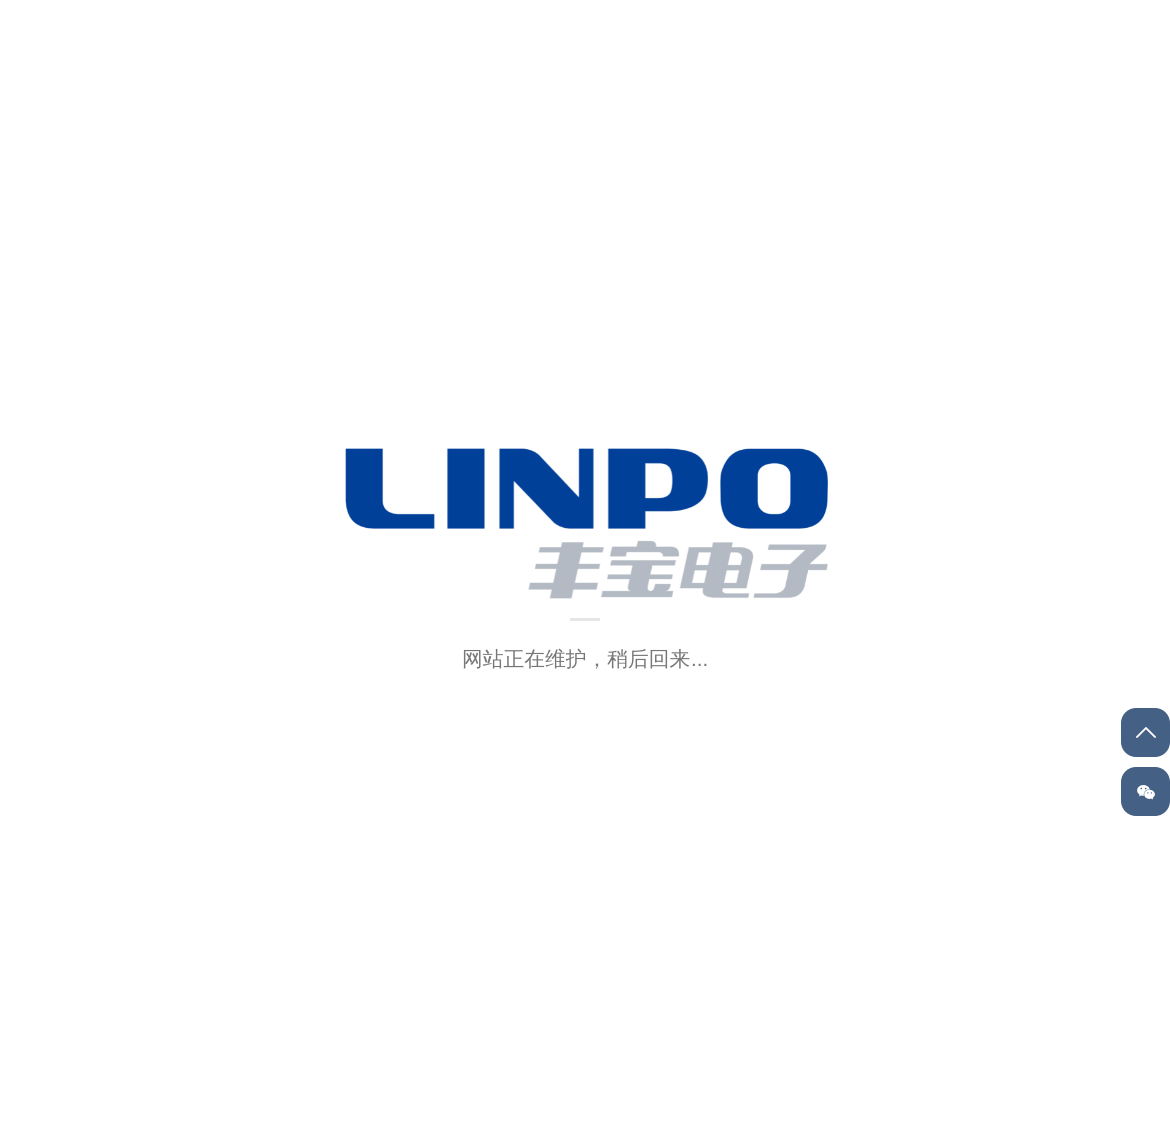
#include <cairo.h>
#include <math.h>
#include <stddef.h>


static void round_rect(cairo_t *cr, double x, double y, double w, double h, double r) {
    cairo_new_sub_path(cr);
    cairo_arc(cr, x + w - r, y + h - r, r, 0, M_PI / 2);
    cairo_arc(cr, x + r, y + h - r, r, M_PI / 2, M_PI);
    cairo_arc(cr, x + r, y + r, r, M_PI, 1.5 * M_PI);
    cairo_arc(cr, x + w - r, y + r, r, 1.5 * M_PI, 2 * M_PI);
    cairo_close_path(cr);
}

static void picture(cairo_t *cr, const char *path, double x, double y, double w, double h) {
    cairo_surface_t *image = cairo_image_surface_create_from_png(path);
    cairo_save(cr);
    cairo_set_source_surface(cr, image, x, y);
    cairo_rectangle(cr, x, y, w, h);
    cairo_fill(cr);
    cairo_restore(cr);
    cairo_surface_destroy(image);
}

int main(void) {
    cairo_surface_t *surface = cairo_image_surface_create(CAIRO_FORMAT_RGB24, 1170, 1134);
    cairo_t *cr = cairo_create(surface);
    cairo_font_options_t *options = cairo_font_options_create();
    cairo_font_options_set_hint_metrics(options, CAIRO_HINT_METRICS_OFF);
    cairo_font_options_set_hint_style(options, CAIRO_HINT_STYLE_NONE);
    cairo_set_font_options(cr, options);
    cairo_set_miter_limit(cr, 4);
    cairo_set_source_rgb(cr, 1, 1, 1);
    cairo_paint(cr);
    picture(cr, "img1.png", 345, 448, 483, 151);
    cairo_set_source_rgb(cr, 0.902, 0.902, 0.902);
    cairo_rectangle(cr, 570, 618, 30, 3);
    cairo_fill(cr);
    cairo_select_font_face(cr, "WenQuanYi Zen Hei Medium", CAIRO_FONT_SLANT_NORMAL, CAIRO_FONT_WEIGHT_NORMAL);
    cairo_set_font_size(cr, 20.75);
    cairo_set_source_rgb(cr, 0.467, 0.467, 0.467);
    cairo_move_to(cr, 462, 666);
    cairo_show_text(cr, "网站正在维护，稍后回来");
    cairo_select_font_face(cr, "Liberation Sans", CAIRO_FONT_SLANT_NORMAL, CAIRO_FONT_WEIGHT_NORMAL);
    cairo_move_to(cr, 691, 666);
    cairo_show_text(cr, "...");
    cairo_set_source_rgb(cr, 0.267, 0.376, 0.518);
    round_rect(cr, 1121, 708, 49, 49, 15);
    cairo_fill(cr);
    picture(cr, "img2.png", 1136, 727, 20, 11);
    round_rect(cr, 1121, 767, 49, 49, 15);
    cairo_fill(cr);
    picture(cr, "img3.png", 1137, 785, 18, 15);
    cairo_surface_write_to_png(surface, "page.png");
    cairo_font_options_destroy(options);
    cairo_destroy(cr);
    cairo_surface_destroy(surface);
    return 0;
}
